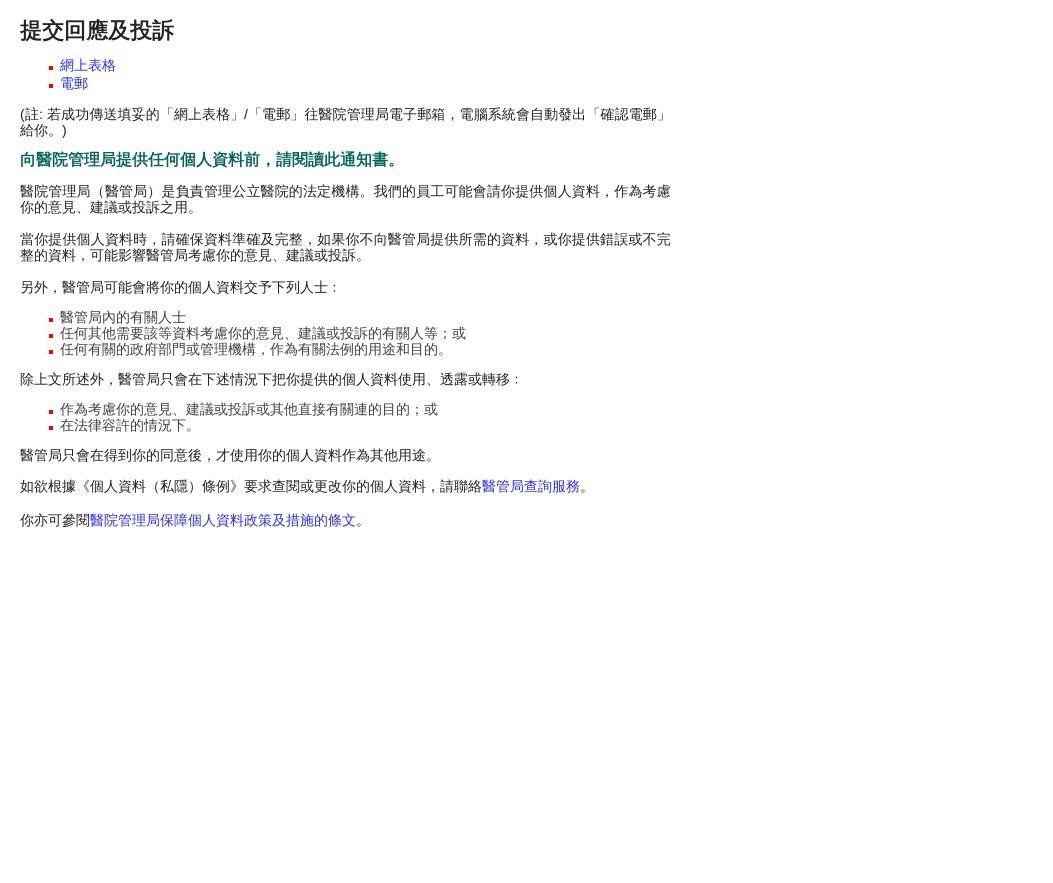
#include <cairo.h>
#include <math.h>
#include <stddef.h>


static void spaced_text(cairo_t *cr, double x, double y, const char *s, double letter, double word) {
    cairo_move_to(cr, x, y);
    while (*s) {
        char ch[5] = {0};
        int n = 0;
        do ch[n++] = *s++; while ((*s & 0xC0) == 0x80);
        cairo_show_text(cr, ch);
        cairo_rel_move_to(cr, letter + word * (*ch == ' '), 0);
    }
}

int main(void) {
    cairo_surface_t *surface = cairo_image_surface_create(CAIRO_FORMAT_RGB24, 1053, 883);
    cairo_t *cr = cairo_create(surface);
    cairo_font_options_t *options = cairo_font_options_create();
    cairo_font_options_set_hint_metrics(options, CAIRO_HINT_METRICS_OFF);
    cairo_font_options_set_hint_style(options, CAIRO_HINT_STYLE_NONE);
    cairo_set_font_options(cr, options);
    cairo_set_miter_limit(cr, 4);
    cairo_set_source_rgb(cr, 1, 1, 1);
    cairo_paint(cr);
    cairo_select_font_face(cr, "WenQuanYi Zen Hei", CAIRO_FONT_SLANT_NORMAL, CAIRO_FONT_WEIGHT_BOLD);
    cairo_set_font_size(cr, 22);
    cairo_set_source_rgb(cr, 0.137, 0.137, 0.137);
    cairo_move_to(cr, 20, 38);
    cairo_show_text(cr, "提交回應及投訴");
    cairo_set_source_rgb(cr, 0.996, 0.004, 0);
    cairo_rectangle(cr, 49, 66, 4, 4);
    cairo_fill(cr);
    cairo_select_font_face(cr, "WenQuanYi Zen Hei Medium", CAIRO_FONT_SLANT_NORMAL, CAIRO_FONT_WEIGHT_NORMAL);
    cairo_set_font_size(cr, 14);
    cairo_set_source_rgb(cr, 0.18, 0.18, 1);
    cairo_move_to(cr, 60, 70);
    cairo_show_text(cr, "網上表格");
    cairo_set_source_rgb(cr, 0.996, 0.004, 0);
    cairo_rectangle(cr, 49, 84, 4, 4);
    cairo_fill(cr);
    cairo_set_source_rgb(cr, 0.18, 0.18, 1);
    cairo_move_to(cr, 60, 88);
    cairo_show_text(cr, "電郵");
    cairo_select_font_face(cr, "Liberation Sans", CAIRO_FONT_SLANT_NORMAL, CAIRO_FONT_WEIGHT_NORMAL);
    cairo_set_source_rgb(cr, 0.137, 0.137, 0.137);
    spaced_text(cr, 20, 119, "(", 0.1, 0);
    cairo_select_font_face(cr, "WenQuanYi Zen Hei Medium", CAIRO_FONT_SLANT_NORMAL, CAIRO_FONT_WEIGHT_NORMAL);
    spaced_text(cr, 25, 119, "註", 0.1, 0);
    cairo_select_font_face(cr, "Liberation Sans", CAIRO_FONT_SLANT_NORMAL, CAIRO_FONT_WEIGHT_NORMAL);
    spaced_text(cr, 39, 119, ":", 0.1, 0);
    cairo_select_font_face(cr, "WenQuanYi Zen Hei Medium", CAIRO_FONT_SLANT_NORMAL, CAIRO_FONT_WEIGHT_NORMAL);
    spaced_text(cr, 47, 119, "若成功傳送填妥的「網上表格」", 0.1, 0);
    cairo_select_font_face(cr, "Liberation Sans", CAIRO_FONT_SLANT_NORMAL, CAIRO_FONT_WEIGHT_NORMAL);
    spaced_text(cr, 244, 119, "/", 0.1, 0);
    cairo_select_font_face(cr, "WenQuanYi Zen Hei Medium", CAIRO_FONT_SLANT_NORMAL, CAIRO_FONT_WEIGHT_NORMAL);
    spaced_text(cr, 248, 119, "「電郵」往醫院管理局電子郵箱，電腦系統會自動發出「確認電郵」", 0.1, 0);
    cairo_move_to(cr, 20, 135);
    cairo_show_text(cr, "給你。");
    cairo_select_font_face(cr, "Liberation Sans", CAIRO_FONT_SLANT_NORMAL, CAIRO_FONT_WEIGHT_NORMAL);
    cairo_move_to(cr, 62, 135);
    cairo_show_text(cr, ")");
    cairo_select_font_face(cr, "WenQuanYi Zen Hei", CAIRO_FONT_SLANT_NORMAL, CAIRO_FONT_WEIGHT_BOLD);
    cairo_set_font_size(cr, 16);
    cairo_set_source_rgb(cr, 0.004, 0.392, 0.341);
    cairo_move_to(cr, 20, 165);
    cairo_show_text(cr, "向醫院管理局提供任何個人資料前，請閱讀此通知書。");
    cairo_select_font_face(cr, "WenQuanYi Zen Hei Medium", CAIRO_FONT_SLANT_NORMAL, CAIRO_FONT_WEIGHT_NORMAL);
    cairo_set_font_size(cr, 14);
    cairo_set_source_rgb(cr, 0.137, 0.137, 0.137);
    spaced_text(cr, 20, 196, "醫院管理局（醫管局）是負責管理公立醫院的法定機構。我們的員工可能會請你提供個人資料，作為考慮", 0.15, 0);
    cairo_move_to(cr, 20, 212);
    cairo_show_text(cr, "你的意見、建議或投訴之用。");
    spaced_text(cr, 20, 244, "當你提供個人資料時，請確保資料準確及完整，如果你不向醫管局提供所需的資料，或你提供錯誤或不完", 0.15, 0);
    cairo_move_to(cr, 20, 260);
    cairo_show_text(cr, "整的資料，可能影響醫管局考慮你的意見、建議或投訴。");
    cairo_move_to(cr, 20, 292);
    cairo_show_text(cr, "另外，醫管局可能會將你的個人資料交予下列人士﹕");
    cairo_set_source_rgb(cr, 0.996, 0.004, 0);
    cairo_rectangle(cr, 49, 318, 4, 4);
    cairo_fill(cr);
    cairo_set_source_rgb(cr, 0.255, 0.255, 0.255);
    cairo_move_to(cr, 60, 322);
    cairo_show_text(cr, "醫管局內的有關人士");
    cairo_set_source_rgb(cr, 0.996, 0.004, 0);
    cairo_rectangle(cr, 49, 334, 4, 4);
    cairo_fill(cr);
    cairo_set_source_rgb(cr, 0.255, 0.255, 0.255);
    cairo_move_to(cr, 60, 338);
    cairo_show_text(cr, "任何其他需要該等資料考慮你的意見、建議或投訴的有關人等；或");
    cairo_set_source_rgb(cr, 0.996, 0.004, 0);
    cairo_rectangle(cr, 49, 350, 4, 4);
    cairo_fill(cr);
    cairo_set_source_rgb(cr, 0.255, 0.255, 0.255);
    cairo_move_to(cr, 60, 354);
    cairo_show_text(cr, "任何有關的政府部門或管理機構，作為有關法例的用途和目的。");
    cairo_set_source_rgb(cr, 0.137, 0.137, 0.137);
    cairo_move_to(cr, 20, 384);
    cairo_show_text(cr, "除上文所述外，醫管局只會在下述情況下把你提供的個人資料使用、透露或轉移﹕");
    cairo_set_source_rgb(cr, 0.996, 0.004, 0);
    cairo_rectangle(cr, 49, 410, 4, 4);
    cairo_fill(cr);
    cairo_set_source_rgb(cr, 0.255, 0.255, 0.255);
    cairo_move_to(cr, 60, 414);
    cairo_show_text(cr, "作為考慮你的意見、建議或投訴或其他直接有關連的目的；或");
    cairo_set_source_rgb(cr, 0.996, 0.004, 0);
    cairo_rectangle(cr, 49, 426, 4, 4);
    cairo_fill(cr);
    cairo_set_source_rgb(cr, 0.255, 0.255, 0.255);
    cairo_move_to(cr, 60, 430);
    cairo_show_text(cr, "在法律容許的情況下。");
    cairo_set_source_rgb(cr, 0.137, 0.137, 0.137);
    cairo_move_to(cr, 20, 460);
    cairo_show_text(cr, "醫管局只會在得到你的同意後，才使用你的個人資料作為其他用途。");
    cairo_move_to(cr, 20, 491);
    cairo_show_text(cr, "如欲根據《個人資料（私隱）條例》要求查閱或更改你的個人資料，請聯絡");
    cairo_set_source_rgb(cr, 0.18, 0.18, 1);
    cairo_move_to(cr, 482, 491);
    cairo_show_text(cr, "醫管局查詢服務");
    cairo_set_source_rgb(cr, 0.137, 0.137, 0.137);
    cairo_move_to(cr, 580, 491);
    cairo_show_text(cr, "。");
    cairo_move_to(cr, 20, 525);
    cairo_show_text(cr, "你亦可參閱");
    cairo_set_source_rgb(cr, 0.18, 0.18, 1);
    cairo_move_to(cr, 90, 525);
    cairo_show_text(cr, "醫院管理局保障個人資料政策及措施的條文");
    cairo_set_source_rgb(cr, 0.137, 0.137, 0.137);
    cairo_move_to(cr, 356, 525);
    cairo_show_text(cr, "。");
    cairo_surface_write_to_png(surface, "page.png");
    cairo_font_options_destroy(options);
    cairo_destroy(cr);
    cairo_surface_destroy(surface);
    return 0;
}
